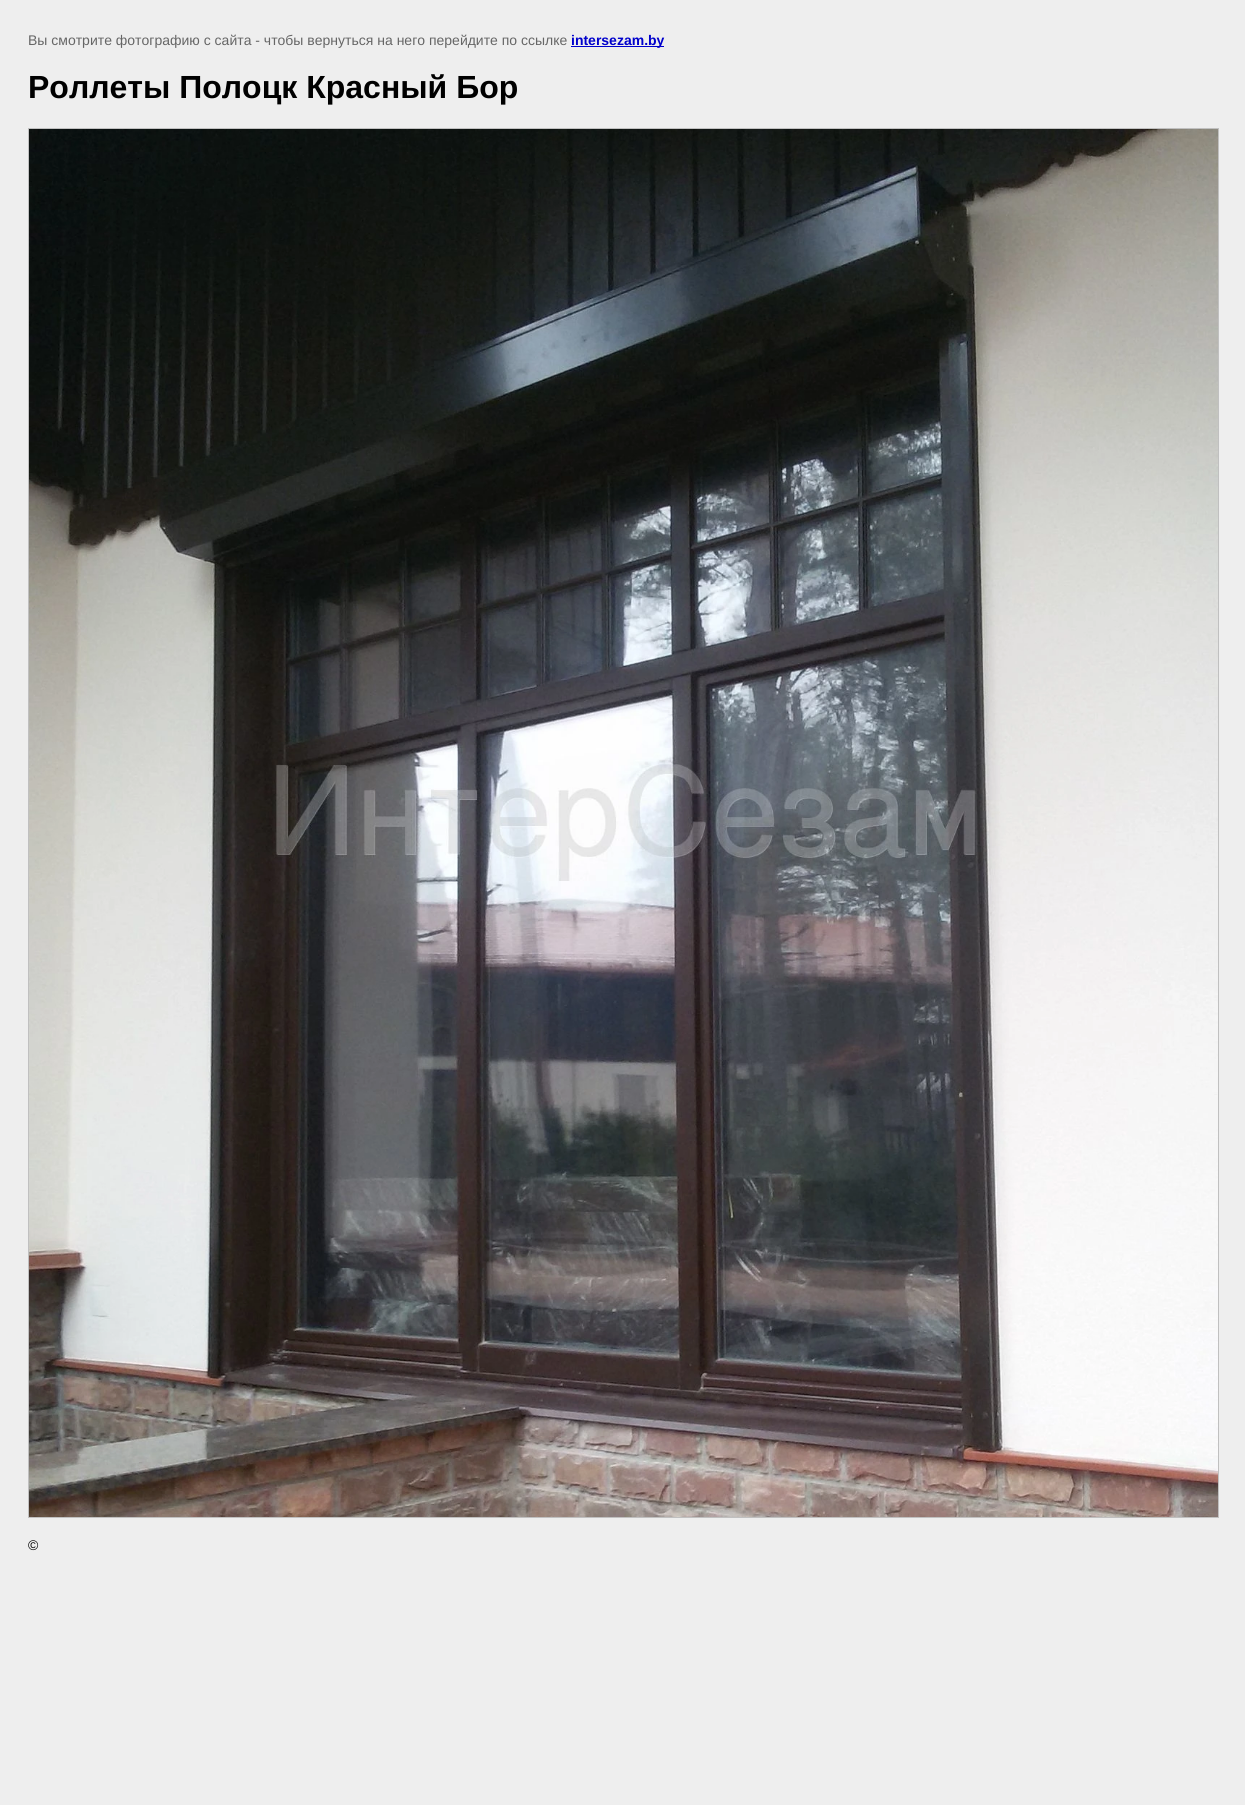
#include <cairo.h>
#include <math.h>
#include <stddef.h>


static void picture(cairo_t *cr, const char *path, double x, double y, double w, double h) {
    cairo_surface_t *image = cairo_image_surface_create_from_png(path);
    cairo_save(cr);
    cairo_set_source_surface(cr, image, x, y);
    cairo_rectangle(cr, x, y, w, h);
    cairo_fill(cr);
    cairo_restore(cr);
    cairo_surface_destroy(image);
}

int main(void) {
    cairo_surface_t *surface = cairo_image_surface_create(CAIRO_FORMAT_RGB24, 1245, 1805);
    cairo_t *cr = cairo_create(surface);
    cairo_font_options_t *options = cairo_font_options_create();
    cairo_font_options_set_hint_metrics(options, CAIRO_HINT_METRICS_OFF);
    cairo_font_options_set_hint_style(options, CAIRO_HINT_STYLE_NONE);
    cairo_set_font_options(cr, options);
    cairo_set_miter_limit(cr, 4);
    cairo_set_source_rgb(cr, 0.933, 0.933, 0.933);
    cairo_paint(cr);
    cairo_select_font_face(cr, "Liberation Sans", CAIRO_FONT_SLANT_NORMAL, CAIRO_FONT_WEIGHT_NORMAL);
    cairo_set_font_size(cr, 14);
    cairo_set_source_rgb(cr, 0.4, 0.4, 0.4);
    cairo_move_to(cr, 28, 45);
    cairo_show_text(cr, "Вы смотрите фотографию с сайта - чтобы вернуться на него перейдите по ссылке");
    cairo_set_source_rgb(cr, 0, 0, 0.8);
    cairo_rectangle(cr, 571, 46, 93, 1);
    cairo_fill(cr);
    cairo_select_font_face(cr, "Liberation Sans", CAIRO_FONT_SLANT_NORMAL, CAIRO_FONT_WEIGHT_BOLD);
    cairo_move_to(cr, 571, 45);
    cairo_show_text(cr, "intersezam.by");
    cairo_set_font_size(cr, 32);
    cairo_set_source_rgb(cr, 0, 0, 0);
    cairo_move_to(cr, 28, 98);
    cairo_show_text(cr, "Роллеты Полоцк Красный Бор");
    cairo_rectangle(cr, 28.5, 128.5, 1190, 1389);
    cairo_set_source_rgb(cr, 0.753, 0.753, 0.753);
    cairo_set_line_width(cr, 1);
    cairo_stroke(cr);
    picture(cr, "img1.png", 29, 129, 1189, 1388);
    cairo_select_font_face(cr, "Liberation Sans", CAIRO_FONT_SLANT_NORMAL, CAIRO_FONT_WEIGHT_NORMAL);
    cairo_set_font_size(cr, 14);
    cairo_set_source_rgb(cr, 0, 0, 0);
    cairo_move_to(cr, 28, 1550);
    cairo_show_text(cr, "©");
    cairo_surface_write_to_png(surface, "page.png");
    cairo_font_options_destroy(options);
    cairo_destroy(cr);
    cairo_surface_destroy(surface);
    return 0;
}
